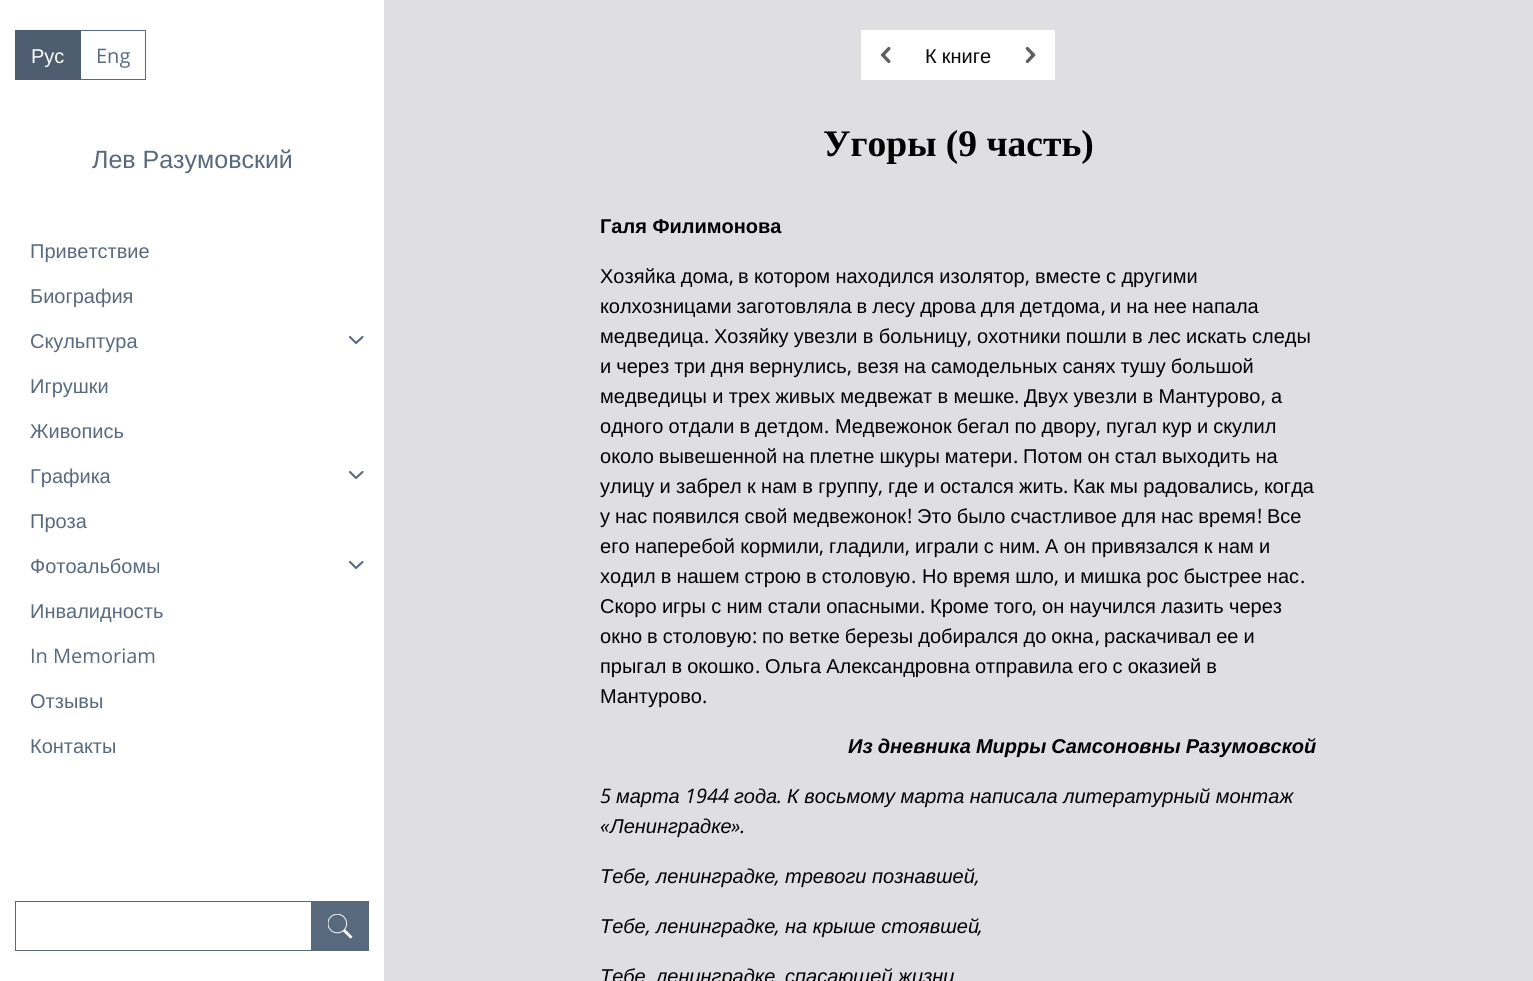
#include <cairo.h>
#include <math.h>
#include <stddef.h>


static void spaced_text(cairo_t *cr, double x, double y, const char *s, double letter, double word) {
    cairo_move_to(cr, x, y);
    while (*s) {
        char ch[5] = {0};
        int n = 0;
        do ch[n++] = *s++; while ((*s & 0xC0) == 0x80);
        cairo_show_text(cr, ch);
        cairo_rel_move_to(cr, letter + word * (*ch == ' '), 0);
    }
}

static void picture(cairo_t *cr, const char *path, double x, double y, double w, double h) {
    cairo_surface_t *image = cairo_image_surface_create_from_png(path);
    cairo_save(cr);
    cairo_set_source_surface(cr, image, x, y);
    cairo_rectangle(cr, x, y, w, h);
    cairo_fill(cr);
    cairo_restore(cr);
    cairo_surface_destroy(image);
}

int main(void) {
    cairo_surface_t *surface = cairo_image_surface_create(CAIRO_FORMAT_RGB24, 1533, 981);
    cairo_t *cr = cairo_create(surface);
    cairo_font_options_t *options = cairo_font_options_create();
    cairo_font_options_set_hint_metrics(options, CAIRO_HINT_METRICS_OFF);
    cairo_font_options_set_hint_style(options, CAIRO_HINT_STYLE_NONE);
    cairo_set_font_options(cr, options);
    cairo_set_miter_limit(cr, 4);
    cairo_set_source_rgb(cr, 0.875, 0.875, 0.882);
    cairo_paint(cr);
    cairo_set_source_rgb(cr, 1, 1, 1);
    cairo_rectangle(cr, 0, 0, 384, 981);
    cairo_fill(cr);
    cairo_rectangle(cr, 80.5, 30.5, 65, 49);
    cairo_set_source_rgb(cr, 0.345, 0.412, 0.494);
    cairo_set_line_width(cr, 1);
    cairo_stroke(cr);
    cairo_set_source_rgb(cr, 0.302, 0.365, 0.435);
    cairo_rectangle(cr, 15, 30, 66, 50);
    cairo_fill(cr);
    cairo_select_font_face(cr, "Liberation Sans", CAIRO_FONT_SLANT_NORMAL, CAIRO_FONT_WEIGHT_NORMAL);
    cairo_set_font_size(cr, 20);
    cairo_set_source_rgb(cr, 1, 1, 1);
    cairo_move_to(cr, 31, 63);
    cairo_show_text(cr, "Рус");
    cairo_select_font_face(cr, "Open Sans", CAIRO_FONT_SLANT_NORMAL, CAIRO_FONT_WEIGHT_NORMAL);
    cairo_set_source_rgb(cr, 0.345, 0.412, 0.494);
    cairo_move_to(cr, 96, 63);
    cairo_show_text(cr, "Eng");
    cairo_select_font_face(cr, "Liberation Sans", CAIRO_FONT_SLANT_NORMAL, CAIRO_FONT_WEIGHT_NORMAL);
    cairo_set_font_size(cr, 25);
    cairo_move_to(cr, 92, 168);
    cairo_show_text(cr, "Лев Разумовский");
    cairo_set_font_size(cr, 20);
    cairo_move_to(cr, 30, 258);
    cairo_show_text(cr, "Приветствие");
    cairo_move_to(cr, 30, 303);
    cairo_show_text(cr, "Биография");
    cairo_move_to(cr, 30, 348);
    cairo_show_text(cr, "Скульптура");
    cairo_new_path(cr);
    cairo_move_to(cr, 350, 337);
    cairo_line_to(cr, 356, 343);
    cairo_line_to(cr, 362.5, 337);
    cairo_set_line_width(cr, 2.1);
    cairo_set_line_cap(cr, CAIRO_LINE_CAP_ROUND);
    cairo_set_line_join(cr, CAIRO_LINE_JOIN_ROUND);
    cairo_stroke(cr);
    cairo_move_to(cr, 30, 393);
    cairo_show_text(cr, "Игрушки");
    cairo_move_to(cr, 30, 438);
    cairo_show_text(cr, "Живопись");
    cairo_move_to(cr, 30, 483);
    cairo_show_text(cr, "Графика");
    cairo_new_path(cr);
    cairo_move_to(cr, 350, 472);
    cairo_line_to(cr, 356, 478);
    cairo_line_to(cr, 362.5, 472);
    cairo_stroke(cr);
    cairo_move_to(cr, 30, 528);
    cairo_show_text(cr, "Проза");
    cairo_move_to(cr, 30, 573);
    cairo_show_text(cr, "Фотоальбомы");
    cairo_new_path(cr);
    cairo_move_to(cr, 350, 562);
    cairo_line_to(cr, 356, 568);
    cairo_line_to(cr, 362.5, 562);
    cairo_stroke(cr);
    cairo_move_to(cr, 30, 618);
    cairo_show_text(cr, "Инвалидность");
    cairo_select_font_face(cr, "Open Sans", CAIRO_FONT_SLANT_NORMAL, CAIRO_FONT_WEIGHT_NORMAL);
    cairo_move_to(cr, 30, 663);
    cairo_show_text(cr, "In Memoriam");
    cairo_select_font_face(cr, "Liberation Sans", CAIRO_FONT_SLANT_NORMAL, CAIRO_FONT_WEIGHT_NORMAL);
    cairo_move_to(cr, 30, 708);
    cairo_show_text(cr, "Отзывы");
    cairo_move_to(cr, 30, 753);
    cairo_show_text(cr, "Контакты");
    cairo_rectangle(cr, 15.5, 901.5, 297, 49);
    cairo_set_line_width(cr, 1);
    cairo_set_line_cap(cr, CAIRO_LINE_CAP_BUTT);
    cairo_set_line_join(cr, CAIRO_LINE_JOIN_MITER);
    cairo_stroke(cr);
    cairo_rectangle(cr, 311, 901, 58, 50);
    cairo_fill(cr);
    picture(cr, "img1.png", 328, 914, 25, 25);
    cairo_set_source_rgb(cr, 1, 1, 1);
    cairo_rectangle(cr, 861, 30, 194, 50);
    cairo_fill(cr);
    picture(cr, "img2.png", 880, 46, 11, 18);
    cairo_set_source_rgb(cr, 0.039, 0.039, 0.039);
    spaced_text(cr, 925, 63, "К книге", 0, -0.5);
    picture(cr, "img3.png", 1025, 46, 11, 18);
    cairo_select_font_face(cr, "Liberation Serif", CAIRO_FONT_SLANT_NORMAL, CAIRO_FONT_WEIGHT_BOLD);
    cairo_set_font_size(cr, 37.5);
    cairo_set_source_rgb(cr, 0, 0, 0);
    cairo_move_to(cr, 823, 156);
    cairo_show_text(cr, "Угоры (9 часть)");
    cairo_select_font_face(cr, "Liberation Sans", CAIRO_FONT_SLANT_NORMAL, CAIRO_FONT_WEIGHT_BOLD);
    cairo_set_font_size(cr, 20);
    cairo_move_to(cr, 600, 233);
    cairo_show_text(cr, "Галя Филимонова");
    cairo_select_font_face(cr, "Liberation Sans", CAIRO_FONT_SLANT_NORMAL, CAIRO_FONT_WEIGHT_NORMAL);
    spaced_text(cr, 600, 283, "Хозяйка дома", 0, -0.25);
    cairo_select_font_face(cr, "Open Sans", CAIRO_FONT_SLANT_NORMAL, CAIRO_FONT_WEIGHT_NORMAL);
    cairo_move_to(cr, 729, 283);
    cairo_show_text(cr, ",");
    cairo_select_font_face(cr, "Liberation Sans", CAIRO_FONT_SLANT_NORMAL, CAIRO_FONT_WEIGHT_NORMAL);
    spaced_text(cr, 738, 283, "в котором находился изолятор", 0, -0.25);
    cairo_select_font_face(cr, "Open Sans", CAIRO_FONT_SLANT_NORMAL, CAIRO_FONT_WEIGHT_NORMAL);
    cairo_move_to(cr, 1025, 283);
    cairo_show_text(cr, ",");
    cairo_select_font_face(cr, "Liberation Sans", CAIRO_FONT_SLANT_NORMAL, CAIRO_FONT_WEIGHT_NORMAL);
    spaced_text(cr, 1035, 283, "вместе с другими", 0, -0.25);
    spaced_text(cr, 600, 313, "колхозницами заготовляла в лесу дрова для детдома", 0, -0.5);
    cairo_select_font_face(cr, "Open Sans", CAIRO_FONT_SLANT_NORMAL, CAIRO_FONT_WEIGHT_NORMAL);
    cairo_move_to(cr, 1101, 313);
    cairo_show_text(cr, ",");
    cairo_select_font_face(cr, "Liberation Sans", CAIRO_FONT_SLANT_NORMAL, CAIRO_FONT_WEIGHT_NORMAL);
    spaced_text(cr, 1110, 313, "и на нее напала", 0, -0.5);
    cairo_move_to(cr, 600, 343);
    cairo_show_text(cr, "медведица");
    cairo_select_font_face(cr, "Open Sans", CAIRO_FONT_SLANT_NORMAL, CAIRO_FONT_WEIGHT_NORMAL);
    cairo_move_to(cr, 704, 343);
    cairo_show_text(cr, ".");
    cairo_select_font_face(cr, "Liberation Sans", CAIRO_FONT_SLANT_NORMAL, CAIRO_FONT_WEIGHT_NORMAL);
    spaced_text(cr, 714, 343, "Хозяйку увезли в больницу", 0, -0.25);
    cairo_select_font_face(cr, "Open Sans", CAIRO_FONT_SLANT_NORMAL, CAIRO_FONT_WEIGHT_NORMAL);
    cairo_move_to(cr, 967, 343);
    cairo_show_text(cr, ",");
    cairo_select_font_face(cr, "Liberation Sans", CAIRO_FONT_SLANT_NORMAL, CAIRO_FONT_WEIGHT_NORMAL);
    spaced_text(cr, 977, 343, "охотники пошли в лес искать следы", 0, -0.25);
    spaced_text(cr, 600, 373, "и через три дня вернулись", 0, -0.5);
    cairo_select_font_face(cr, "Open Sans", CAIRO_FONT_SLANT_NORMAL, CAIRO_FONT_WEIGHT_NORMAL);
    cairo_move_to(cr, 847, 373);
    cairo_show_text(cr, ",");
    cairo_select_font_face(cr, "Liberation Sans", CAIRO_FONT_SLANT_NORMAL, CAIRO_FONT_WEIGHT_NORMAL);
    spaced_text(cr, 857, 373, "везя на самодельных санях тушу большой", 0, -0.5);
    spaced_text(cr, 600, 403, "медведицы и трех живых медвежат в мешке", 0, -0.25);
    cairo_select_font_face(cr, "Open Sans", CAIRO_FONT_SLANT_NORMAL, CAIRO_FONT_WEIGHT_NORMAL);
    cairo_move_to(cr, 1014, 403);
    cairo_show_text(cr, ".");
    cairo_select_font_face(cr, "Liberation Sans", CAIRO_FONT_SLANT_NORMAL, CAIRO_FONT_WEIGHT_NORMAL);
    spaced_text(cr, 1024, 403, "Двух увезли в Мантурово", 0, -0.25);
    cairo_select_font_face(cr, "Open Sans", CAIRO_FONT_SLANT_NORMAL, CAIRO_FONT_WEIGHT_NORMAL);
    cairo_move_to(cr, 1261, 403);
    cairo_show_text(cr, ",");
    cairo_select_font_face(cr, "Liberation Sans", CAIRO_FONT_SLANT_NORMAL, CAIRO_FONT_WEIGHT_NORMAL);
    cairo_move_to(cr, 1271, 403);
    cairo_show_text(cr, "а");
    spaced_text(cr, 600, 433, "одного отдали в детдом", 0, -0.5);
    cairo_select_font_face(cr, "Open Sans", CAIRO_FONT_SLANT_NORMAL, CAIRO_FONT_WEIGHT_NORMAL);
    cairo_move_to(cr, 824, 433);
    cairo_show_text(cr, ".");
    cairo_select_font_face(cr, "Liberation Sans", CAIRO_FONT_SLANT_NORMAL, CAIRO_FONT_WEIGHT_NORMAL);
    spaced_text(cr, 835, 433, "Медвежонок бегал по двору", 0, -0.5);
    cairo_select_font_face(cr, "Open Sans", CAIRO_FONT_SLANT_NORMAL, CAIRO_FONT_WEIGHT_NORMAL);
    cairo_move_to(cr, 1096, 433);
    cairo_show_text(cr, ",");
    cairo_select_font_face(cr, "Liberation Sans", CAIRO_FONT_SLANT_NORMAL, CAIRO_FONT_WEIGHT_NORMAL);
    spaced_text(cr, 1106, 433, "пугал кур и скулил", 0, -0.5);
    spaced_text(cr, 600, 463, "около вывешенной на плетне шкуры матери", 0, -0.5);
    cairo_select_font_face(cr, "Open Sans", CAIRO_FONT_SLANT_NORMAL, CAIRO_FONT_WEIGHT_NORMAL);
    cairo_move_to(cr, 1013, 463);
    cairo_show_text(cr, ".");
    cairo_select_font_face(cr, "Liberation Sans", CAIRO_FONT_SLANT_NORMAL, CAIRO_FONT_WEIGHT_NORMAL);
    spaced_text(cr, 1023, 463, "Потом он стал выходить на", 0, -0.5);
    spaced_text(cr, 600, 493, "улицу и забрел к нам в группу", 0, -0.25);
    cairo_select_font_face(cr, "Open Sans", CAIRO_FONT_SLANT_NORMAL, CAIRO_FONT_WEIGHT_NORMAL);
    cairo_move_to(cr, 878, 493);
    cairo_show_text(cr, ",");
    cairo_select_font_face(cr, "Liberation Sans", CAIRO_FONT_SLANT_NORMAL, CAIRO_FONT_WEIGHT_NORMAL);
    spaced_text(cr, 888, 493, "где и остался жить", 0, -0.25);
    cairo_select_font_face(cr, "Open Sans", CAIRO_FONT_SLANT_NORMAL, CAIRO_FONT_WEIGHT_NORMAL);
    cairo_move_to(cr, 1063, 493);
    cairo_show_text(cr, ".");
    cairo_select_font_face(cr, "Liberation Sans", CAIRO_FONT_SLANT_NORMAL, CAIRO_FONT_WEIGHT_NORMAL);
    spaced_text(cr, 1073, 493, "Как мы радовались", 0, -0.25);
    cairo_select_font_face(cr, "Open Sans", CAIRO_FONT_SLANT_NORMAL, CAIRO_FONT_WEIGHT_NORMAL);
    cairo_move_to(cr, 1254, 493);
    cairo_show_text(cr, ",");
    cairo_select_font_face(cr, "Liberation Sans", CAIRO_FONT_SLANT_NORMAL, CAIRO_FONT_WEIGHT_NORMAL);
    cairo_move_to(cr, 1264, 493);
    cairo_show_text(cr, "когда");
    spaced_text(cr, 600, 523, "у нас появился свой медвежонок", 0, -0.5);
    cairo_select_font_face(cr, "Open Sans", CAIRO_FONT_SLANT_NORMAL, CAIRO_FONT_WEIGHT_NORMAL);
    cairo_move_to(cr, 907, 523);
    cairo_show_text(cr, "!");
    cairo_select_font_face(cr, "Liberation Sans", CAIRO_FONT_SLANT_NORMAL, CAIRO_FONT_WEIGHT_NORMAL);
    spaced_text(cr, 917, 523, "Это было счастливое для нас время", 0, -0.5);
    cairo_select_font_face(cr, "Open Sans", CAIRO_FONT_SLANT_NORMAL, CAIRO_FONT_WEIGHT_NORMAL);
    cairo_move_to(cr, 1257, 523);
    cairo_show_text(cr, "!");
    cairo_select_font_face(cr, "Liberation Sans", CAIRO_FONT_SLANT_NORMAL, CAIRO_FONT_WEIGHT_NORMAL);
    cairo_move_to(cr, 1267, 523);
    cairo_show_text(cr, "Все");
    spaced_text(cr, 600, 553, "его наперебой кормили", 0, -0.25);
    cairo_select_font_face(cr, "Open Sans", CAIRO_FONT_SLANT_NORMAL, CAIRO_FONT_WEIGHT_NORMAL);
    cairo_move_to(cr, 819, 553);
    cairo_show_text(cr, ",");
    cairo_select_font_face(cr, "Liberation Sans", CAIRO_FONT_SLANT_NORMAL, CAIRO_FONT_WEIGHT_NORMAL);
    cairo_move_to(cr, 829, 553);
    cairo_show_text(cr, "гладили");
    cairo_select_font_face(cr, "Open Sans", CAIRO_FONT_SLANT_NORMAL, CAIRO_FONT_WEIGHT_NORMAL);
    cairo_move_to(cr, 905, 553);
    cairo_show_text(cr, ",");
    cairo_select_font_face(cr, "Liberation Sans", CAIRO_FONT_SLANT_NORMAL, CAIRO_FONT_WEIGHT_NORMAL);
    spaced_text(cr, 915, 553, "играли с ним", 0, -0.25);
    cairo_select_font_face(cr, "Open Sans", CAIRO_FONT_SLANT_NORMAL, CAIRO_FONT_WEIGHT_NORMAL);
    cairo_move_to(cr, 1035, 553);
    cairo_show_text(cr, ".");
    cairo_select_font_face(cr, "Liberation Sans", CAIRO_FONT_SLANT_NORMAL, CAIRO_FONT_WEIGHT_NORMAL);
    spaced_text(cr, 1045, 553, "А он привязался к нам и", 0, -0.25);
    spaced_text(cr, 600, 583, "ходил в нашем строю в столовую", 0, -0.5);
    cairo_select_font_face(cr, "Open Sans", CAIRO_FONT_SLANT_NORMAL, CAIRO_FONT_WEIGHT_NORMAL);
    cairo_move_to(cr, 911, 583);
    cairo_show_text(cr, ".");
    cairo_select_font_face(cr, "Liberation Sans", CAIRO_FONT_SLANT_NORMAL, CAIRO_FONT_WEIGHT_NORMAL);
    spaced_text(cr, 922, 583, "Но время шло", 0, -0.5);
    cairo_select_font_face(cr, "Open Sans", CAIRO_FONT_SLANT_NORMAL, CAIRO_FONT_WEIGHT_NORMAL);
    cairo_move_to(cr, 1054, 583);
    cairo_show_text(cr, ",");
    cairo_select_font_face(cr, "Liberation Sans", CAIRO_FONT_SLANT_NORMAL, CAIRO_FONT_WEIGHT_NORMAL);
    spaced_text(cr, 1064, 583, "и мишка рос быстрее нас", 0, -0.5);
    cairo_select_font_face(cr, "Open Sans", CAIRO_FONT_SLANT_NORMAL, CAIRO_FONT_WEIGHT_NORMAL);
    cairo_move_to(cr, 1300, 583);
    cairo_show_text(cr, ".");
    cairo_select_font_face(cr, "Liberation Sans", CAIRO_FONT_SLANT_NORMAL, CAIRO_FONT_WEIGHT_NORMAL);
    spaced_text(cr, 600, 613, "Скоро игры с ним стали опасными", 0, -0.25);
    cairo_select_font_face(cr, "Open Sans", CAIRO_FONT_SLANT_NORMAL, CAIRO_FONT_WEIGHT_NORMAL);
    cairo_move_to(cr, 920, 613);
    cairo_show_text(cr, ".");
    cairo_select_font_face(cr, "Liberation Sans", CAIRO_FONT_SLANT_NORMAL, CAIRO_FONT_WEIGHT_NORMAL);
    spaced_text(cr, 930, 613, "Кроме того", 0, -0.25);
    cairo_select_font_face(cr, "Open Sans", CAIRO_FONT_SLANT_NORMAL, CAIRO_FONT_WEIGHT_NORMAL);
    cairo_move_to(cr, 1032, 613);
    cairo_show_text(cr, ",");
    cairo_select_font_face(cr, "Liberation Sans", CAIRO_FONT_SLANT_NORMAL, CAIRO_FONT_WEIGHT_NORMAL);
    spaced_text(cr, 1042, 613, "он научился лазить через", 0, -0.25);
    spaced_text(cr, 600, 643, "окно в столовую", 0, -0.5);
    cairo_select_font_face(cr, "Open Sans", CAIRO_FONT_SLANT_NORMAL, CAIRO_FONT_WEIGHT_NORMAL);
    cairo_move_to(cr, 752, 643);
    cairo_show_text(cr, ":");
    cairo_select_font_face(cr, "Liberation Sans", CAIRO_FONT_SLANT_NORMAL, CAIRO_FONT_WEIGHT_NORMAL);
    spaced_text(cr, 762, 643, "по ветке березы добирался до окна", 0, -0.5);
    cairo_select_font_face(cr, "Open Sans", CAIRO_FONT_SLANT_NORMAL, CAIRO_FONT_WEIGHT_NORMAL);
    cairo_move_to(cr, 1095, 643);
    cairo_show_text(cr, ",");
    cairo_select_font_face(cr, "Liberation Sans", CAIRO_FONT_SLANT_NORMAL, CAIRO_FONT_WEIGHT_NORMAL);
    spaced_text(cr, 1104, 643, "раскачивал ее и", 0, -0.5);
    spaced_text(cr, 600, 673, "прыгал в окошко", 0, -0.5);
    cairo_select_font_face(cr, "Open Sans", CAIRO_FONT_SLANT_NORMAL, CAIRO_FONT_WEIGHT_NORMAL);
    cairo_move_to(cr, 755, 673);
    cairo_show_text(cr, ".");
    cairo_select_font_face(cr, "Liberation Sans", CAIRO_FONT_SLANT_NORMAL, CAIRO_FONT_WEIGHT_NORMAL);
    spaced_text(cr, 765, 673, "Ольга Александровна отправила его с оказией в", 0, -0.5);
    cairo_move_to(cr, 600, 703);
    cairo_show_text(cr, "Мантурово");
    cairo_select_font_face(cr, "Open Sans", CAIRO_FONT_SLANT_NORMAL, CAIRO_FONT_WEIGHT_NORMAL);
    cairo_move_to(cr, 702, 703);
    cairo_show_text(cr, ".");
    cairo_select_font_face(cr, "Liberation Sans", CAIRO_FONT_SLANT_ITALIC, CAIRO_FONT_WEIGHT_BOLD);
    spaced_text(cr, 848, 753, "Из дневника Мирры Самсоновны Разумовской", 0, -0.5);
    cairo_select_font_face(cr, "Open Sans", CAIRO_FONT_SLANT_ITALIC, CAIRO_FONT_WEIGHT_NORMAL);
    cairo_move_to(cr, 600, 803);
    cairo_show_text(cr, "5");
    cairo_select_font_face(cr, "Liberation Sans", CAIRO_FONT_SLANT_ITALIC, CAIRO_FONT_WEIGHT_NORMAL);
    cairo_move_to(cr, 616, 803);
    cairo_show_text(cr, "марта");
    cairo_select_font_face(cr, "Open Sans", CAIRO_FONT_SLANT_ITALIC, CAIRO_FONT_WEIGHT_NORMAL);
    cairo_move_to(cr, 685, 803);
    cairo_show_text(cr, "1944");
    cairo_select_font_face(cr, "Liberation Sans", CAIRO_FONT_SLANT_ITALIC, CAIRO_FONT_WEIGHT_NORMAL);
    cairo_move_to(cr, 734, 803);
    cairo_show_text(cr, "года");
    cairo_select_font_face(cr, "Open Sans", CAIRO_FONT_SLANT_ITALIC, CAIRO_FONT_WEIGHT_NORMAL);
    cairo_move_to(cr, 777, 803);
    cairo_show_text(cr, ".");
    cairo_select_font_face(cr, "Liberation Sans", CAIRO_FONT_SLANT_ITALIC, CAIRO_FONT_WEIGHT_NORMAL);
    cairo_move_to(cr, 787, 803);
    cairo_show_text(cr, "К восьмому марта написала литературный монтаж");
    cairo_select_font_face(cr, "Open Sans", CAIRO_FONT_SLANT_ITALIC, CAIRO_FONT_WEIGHT_NORMAL);
    cairo_move_to(cr, 600, 833);
    cairo_show_text(cr, "«");
    cairo_select_font_face(cr, "Liberation Sans", CAIRO_FONT_SLANT_ITALIC, CAIRO_FONT_WEIGHT_NORMAL);
    cairo_move_to(cr, 610, 833);
    cairo_show_text(cr, "Ленинградке");
    cairo_select_font_face(cr, "Open Sans", CAIRO_FONT_SLANT_ITALIC, CAIRO_FONT_WEIGHT_NORMAL);
    cairo_move_to(cr, 731, 833);
    cairo_show_text(cr, "».");
    cairo_select_font_face(cr, "Liberation Sans", CAIRO_FONT_SLANT_ITALIC, CAIRO_FONT_WEIGHT_NORMAL);
    cairo_move_to(cr, 600, 883);
    cairo_show_text(cr, "Тебе");
    cairo_select_font_face(cr, "Open Sans", CAIRO_FONT_SLANT_ITALIC, CAIRO_FONT_WEIGHT_NORMAL);
    cairo_move_to(cr, 646, 883);
    cairo_show_text(cr, ",");
    cairo_select_font_face(cr, "Liberation Sans", CAIRO_FONT_SLANT_ITALIC, CAIRO_FONT_WEIGHT_NORMAL);
    cairo_move_to(cr, 656, 883);
    cairo_show_text(cr, "ленинградке");
    cairo_select_font_face(cr, "Open Sans", CAIRO_FONT_SLANT_ITALIC, CAIRO_FONT_WEIGHT_NORMAL);
    cairo_move_to(cr, 775, 883);
    cairo_show_text(cr, ",");
    cairo_select_font_face(cr, "Liberation Sans", CAIRO_FONT_SLANT_ITALIC, CAIRO_FONT_WEIGHT_NORMAL);
    cairo_move_to(cr, 785, 883);
    cairo_show_text(cr, "тревоги познавшей");
    cairo_select_font_face(cr, "Open Sans", CAIRO_FONT_SLANT_ITALIC, CAIRO_FONT_WEIGHT_NORMAL);
    cairo_move_to(cr, 975, 883);
    cairo_show_text(cr, ",");
    cairo_select_font_face(cr, "Liberation Sans", CAIRO_FONT_SLANT_ITALIC, CAIRO_FONT_WEIGHT_NORMAL);
    cairo_move_to(cr, 600, 933);
    cairo_show_text(cr, "Тебе");
    cairo_select_font_face(cr, "Open Sans", CAIRO_FONT_SLANT_ITALIC, CAIRO_FONT_WEIGHT_NORMAL);
    cairo_move_to(cr, 646, 933);
    cairo_show_text(cr, ",");
    cairo_select_font_face(cr, "Liberation Sans", CAIRO_FONT_SLANT_ITALIC, CAIRO_FONT_WEIGHT_NORMAL);
    cairo_move_to(cr, 656, 933);
    cairo_show_text(cr, "ленинградке");
    cairo_select_font_face(cr, "Open Sans", CAIRO_FONT_SLANT_ITALIC, CAIRO_FONT_WEIGHT_NORMAL);
    cairo_move_to(cr, 775, 933);
    cairo_show_text(cr, ",");
    cairo_select_font_face(cr, "Liberation Sans", CAIRO_FONT_SLANT_ITALIC, CAIRO_FONT_WEIGHT_NORMAL);
    cairo_move_to(cr, 785, 933);
    cairo_show_text(cr, "на крыше стоявшей");
    cairo_select_font_face(cr, "Open Sans", CAIRO_FONT_SLANT_ITALIC, CAIRO_FONT_WEIGHT_NORMAL);
    cairo_move_to(cr, 978, 933);
    cairo_show_text(cr, ",");
    cairo_select_font_face(cr, "Liberation Sans", CAIRO_FONT_SLANT_ITALIC, CAIRO_FONT_WEIGHT_NORMAL);
    cairo_move_to(cr, 600, 983);
    cairo_show_text(cr, "Тебе");
    cairo_move_to(cr, 656, 983);
    cairo_show_text(cr, "ленинградке");
    cairo_move_to(cr, 785, 983);
    cairo_show_text(cr, "спасающей жизни");
    cairo_surface_write_to_png(surface, "page.png");
    cairo_font_options_destroy(options);
    cairo_destroy(cr);
    cairo_surface_destroy(surface);
    return 0;
}
